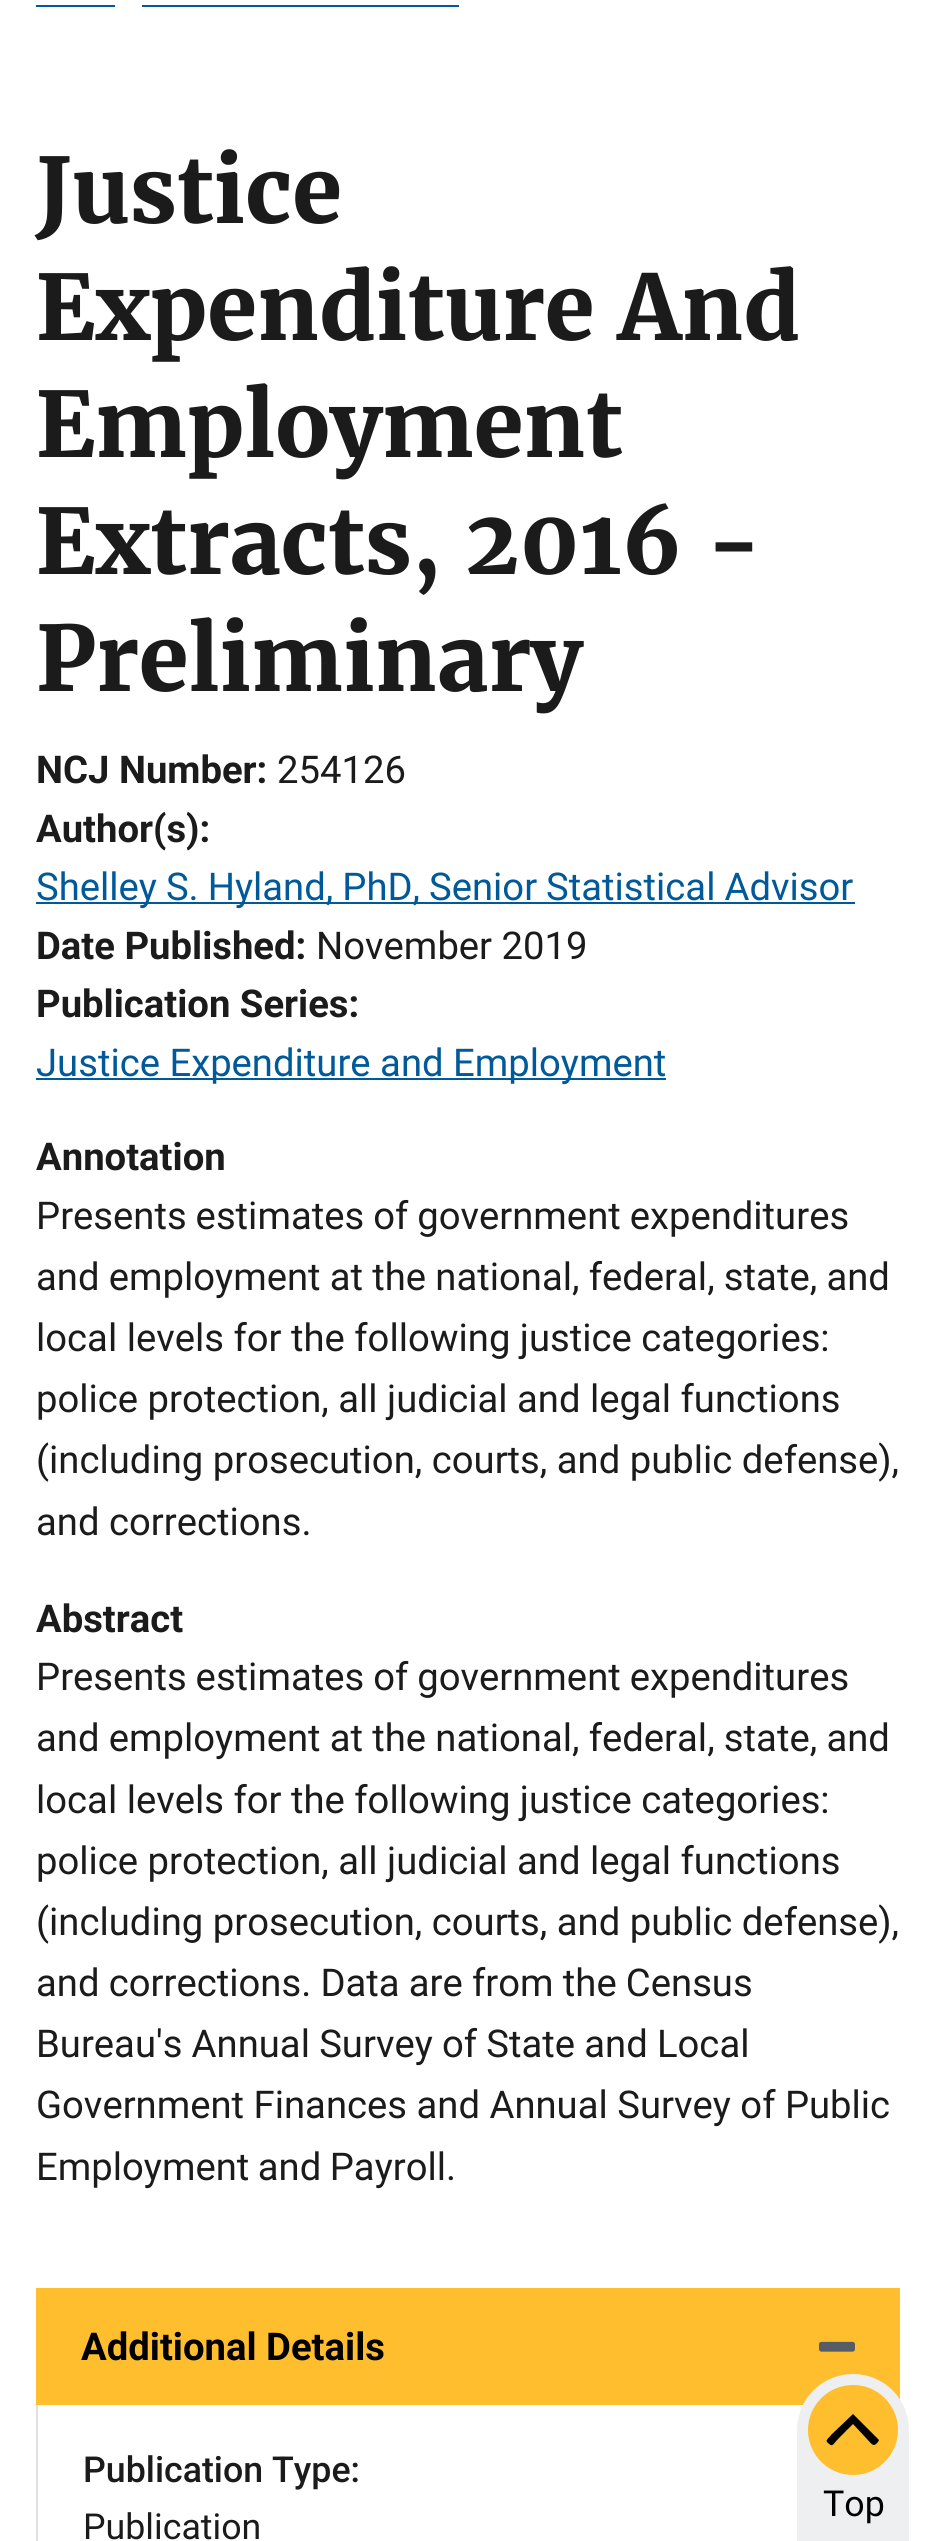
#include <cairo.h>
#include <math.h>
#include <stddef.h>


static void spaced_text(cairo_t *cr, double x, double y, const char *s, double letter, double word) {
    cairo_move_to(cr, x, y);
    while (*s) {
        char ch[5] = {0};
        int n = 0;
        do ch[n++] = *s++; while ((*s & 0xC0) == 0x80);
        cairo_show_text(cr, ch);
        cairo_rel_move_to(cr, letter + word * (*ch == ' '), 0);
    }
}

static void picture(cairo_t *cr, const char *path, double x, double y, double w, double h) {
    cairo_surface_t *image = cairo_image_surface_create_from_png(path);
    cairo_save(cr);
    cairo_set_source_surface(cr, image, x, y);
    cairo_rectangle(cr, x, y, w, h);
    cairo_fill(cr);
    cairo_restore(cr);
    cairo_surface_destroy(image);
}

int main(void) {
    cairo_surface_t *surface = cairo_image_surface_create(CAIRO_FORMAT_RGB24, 935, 2541);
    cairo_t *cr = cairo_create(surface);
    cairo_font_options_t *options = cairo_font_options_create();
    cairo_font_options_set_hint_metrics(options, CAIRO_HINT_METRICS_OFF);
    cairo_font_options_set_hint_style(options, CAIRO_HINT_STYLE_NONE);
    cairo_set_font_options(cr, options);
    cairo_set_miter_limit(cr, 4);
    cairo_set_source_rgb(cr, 1, 1, 1);
    cairo_paint(cr);
    cairo_set_source_rgb(cr, 0, 0.349, 0.6);
    cairo_rectangle(cr, 36, 5, 79, 2);
    cairo_fill(cr);
    cairo_rectangle(cr, 142, 5, 317, 2);
    cairo_fill(cr);
    cairo_select_font_face(cr, "Merriweather", CAIRO_FONT_SLANT_NORMAL, CAIRO_FONT_WEIGHT_BOLD);
    cairo_set_font_size(cr, 90);
    cairo_set_source_rgb(cr, 0.106, 0.106, 0.106);
    cairo_move_to(cr, 36, 223);
    cairo_show_text(cr, "Justice");
    cairo_move_to(cr, 36, 340);
    cairo_show_text(cr, "Expenditure And");
    cairo_move_to(cr, 36, 457);
    cairo_show_text(cr, "Employment");
    cairo_move_to(cr, 36, 574);
    cairo_show_text(cr, "Extracts, 2016 -");
    cairo_move_to(cr, 36, 691);
    cairo_show_text(cr, "Preliminary");
    cairo_select_font_face(cr, "Roboto", CAIRO_FONT_SLANT_NORMAL, CAIRO_FONT_WEIGHT_BOLD);
    cairo_set_font_size(cr, 38.25);
    cairo_move_to(cr, 36, 783);
    cairo_show_text(cr, "NCJ Number:");
    cairo_select_font_face(cr, "Roboto", CAIRO_FONT_SLANT_NORMAL, CAIRO_FONT_WEIGHT_NORMAL);
    cairo_move_to(cr, 277, 783);
    cairo_show_text(cr, "254126");
    cairo_select_font_face(cr, "Roboto", CAIRO_FONT_SLANT_NORMAL, CAIRO_FONT_WEIGHT_BOLD);
    cairo_move_to(cr, 36, 842);
    cairo_show_text(cr, "Author(s):");
    cairo_set_source_rgb(cr, 0, 0.349, 0.6);
    cairo_rectangle(cr, 36, 902, 819, 2);
    cairo_fill(cr);
    cairo_select_font_face(cr, "Roboto", CAIRO_FONT_SLANT_NORMAL, CAIRO_FONT_WEIGHT_NORMAL);
    spaced_text(cr, 36, 900, "Shelley S. Hyland, PhD, Senior Statistical Advisor", 0, -0.5);
    cairo_select_font_face(cr, "Roboto", CAIRO_FONT_SLANT_NORMAL, CAIRO_FONT_WEIGHT_BOLD);
    cairo_set_source_rgb(cr, 0.106, 0.106, 0.106);
    cairo_move_to(cr, 36, 959);
    cairo_show_text(cr, "Date Published:");
    cairo_select_font_face(cr, "Roboto", CAIRO_FONT_SLANT_NORMAL, CAIRO_FONT_WEIGHT_NORMAL);
    cairo_move_to(cr, 316, 959);
    cairo_show_text(cr, "November 2019");
    cairo_select_font_face(cr, "Roboto", CAIRO_FONT_SLANT_NORMAL, CAIRO_FONT_WEIGHT_BOLD);
    cairo_move_to(cr, 36, 1017);
    cairo_show_text(cr, "Publication Series:");
    cairo_set_source_rgb(cr, 0, 0.349, 0.6);
    cairo_rectangle(cr, 36, 1078, 630, 2);
    cairo_fill(cr);
    cairo_select_font_face(cr, "Roboto", CAIRO_FONT_SLANT_NORMAL, CAIRO_FONT_WEIGHT_NORMAL);
    cairo_move_to(cr, 36, 1076);
    cairo_show_text(cr, "Justice Expenditure and Employment");
    cairo_select_font_face(cr, "Roboto", CAIRO_FONT_SLANT_NORMAL, CAIRO_FONT_WEIGHT_BOLD);
    cairo_set_source_rgb(cr, 0.106, 0.106, 0.106);
    cairo_move_to(cr, 36, 1170);
    cairo_show_text(cr, "Annotation");
    cairo_select_font_face(cr, "Roboto", CAIRO_FONT_SLANT_NORMAL, CAIRO_FONT_WEIGHT_NORMAL);
    spaced_text(cr, 36, 1229, "Presents estimates of government expenditures", 0, -0.5);
    spaced_text(cr, 36, 1290, "and employment at the national, federal, state, and", 0, -0.25);
    cairo_move_to(cr, 36, 1351);
    cairo_show_text(cr, "local levels for the following justice categories:");
    cairo_move_to(cr, 36, 1412);
    cairo_show_text(cr, "police protection, all judicial and legal functions");
    cairo_move_to(cr, 36, 1473);
    cairo_show_text(cr, "(including prosecution, courts, and public defense),");
    cairo_move_to(cr, 36, 1535);
    cairo_show_text(cr, "and corrections.");
    cairo_select_font_face(cr, "Roboto", CAIRO_FONT_SLANT_NORMAL, CAIRO_FONT_WEIGHT_BOLD);
    cairo_move_to(cr, 36, 1632);
    cairo_show_text(cr, "Abstract");
    cairo_select_font_face(cr, "Roboto", CAIRO_FONT_SLANT_NORMAL, CAIRO_FONT_WEIGHT_NORMAL);
    spaced_text(cr, 36, 1690, "Presents estimates of government expenditures", 0, -0.5);
    spaced_text(cr, 36, 1751, "and employment at the national, federal, state, and", 0, -0.25);
    cairo_move_to(cr, 36, 1813);
    cairo_show_text(cr, "local levels for the following justice categories:");
    cairo_move_to(cr, 36, 1874);
    cairo_show_text(cr, "police protection, all judicial and legal functions");
    cairo_move_to(cr, 36, 1935);
    cairo_show_text(cr, "(including prosecution, courts, and public defense),");
    spaced_text(cr, 36, 1996, "and corrections. Data are from the Census", 0, -0.25);
    spaced_text(cr, 36, 2057, "Bureau's Annual Survey of State and Local", 0, -0.25);
    cairo_move_to(cr, 36, 2118);
    cairo_show_text(cr, "Government Finances and Annual Survey of Public");
    spaced_text(cr, 36, 2180, "Employment and Payroll.", 0, -1);
    cairo_set_source_rgb(cr, 1, 0.745, 0.18);
    cairo_rectangle(cr, 36, 2288, 864, 117);
    cairo_fill(cr);
    picture(cr, "img1.png", 819, 2341, 36, 11);
    cairo_select_font_face(cr, "Roboto", CAIRO_FONT_SLANT_NORMAL, CAIRO_FONT_WEIGHT_BOLD);
    cairo_set_source_rgb(cr, 0, 0, 0);
    cairo_move_to(cr, 81, 2360);
    cairo_show_text(cr, "Additional Details");
    cairo_set_source_rgb(cr, 0.875, 0.882, 0.886);
    cairo_rectangle(cr, 36, 2405, 2, 136);
    cairo_fill(cr);
    cairo_select_font_face(cr, "Roboto Medium", CAIRO_FONT_SLANT_NORMAL, CAIRO_FONT_WEIGHT_NORMAL);
    cairo_set_font_size(cr, 35.75);
    cairo_set_source_rgb(cr, 0.106, 0.106, 0.106);
    cairo_move_to(cr, 83, 2482);
    cairo_show_text(cr, "Publication Type:");
    cairo_select_font_face(cr, "Roboto", CAIRO_FONT_SLANT_NORMAL, CAIRO_FONT_WEIGHT_NORMAL);
    cairo_move_to(cr, 83, 2539);
    cairo_show_text(cr, "Publication");
    cairo_set_source_rgb(cr, 0.929, 0.937, 0.941);
    cairo_new_path(cr);
    cairo_move_to(cr, 853, 2374);
    cairo_curve_to(cr, 884, 2374, 909, 2399, 909, 2430);
    cairo_line_to(cr, 909, 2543);
    cairo_line_to(cr, 797, 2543);
    cairo_line_to(cr, 797, 2430);
    cairo_curve_to(cr, 797, 2399, 822, 2374, 853, 2374);
    cairo_close_path(cr);
    cairo_fill(cr);
    cairo_set_source_rgb(cr, 1, 0.745, 0.18);
    cairo_arc(cr, 853, 2430, 45, 0, 2 * M_PI);
    cairo_fill(cr);
    cairo_set_source_rgb(cr, 0, 0, 0);
    cairo_new_path(cr);
    cairo_move_to(cr, 827, 2442);
    cairo_curve_to(cr, 825, 2440, 831, 2436, 831, 2435);
    cairo_line_to(cr, 853, 2414);
    cairo_line_to(cr, 854, 2415);
    cairo_line_to(cr, 879, 2440);
    cairo_line_to(cr, 878, 2442);
    cairo_curve_to(cr, 873, 2448, 872, 2444, 866, 2438);
    cairo_line_to(cr, 853, 2424);
    cairo_line_to(cr, 839, 2438);
    cairo_curve_to(cr, 832, 2445, 833, 2448, 827, 2442);
    cairo_close_path(cr);
    cairo_fill(cr);
    cairo_move_to(cr, 823, 2516);
    cairo_show_text(cr, "Top");
    cairo_surface_write_to_png(surface, "page.png");
    cairo_font_options_destroy(options);
    cairo_destroy(cr);
    cairo_surface_destroy(surface);
    return 0;
}
